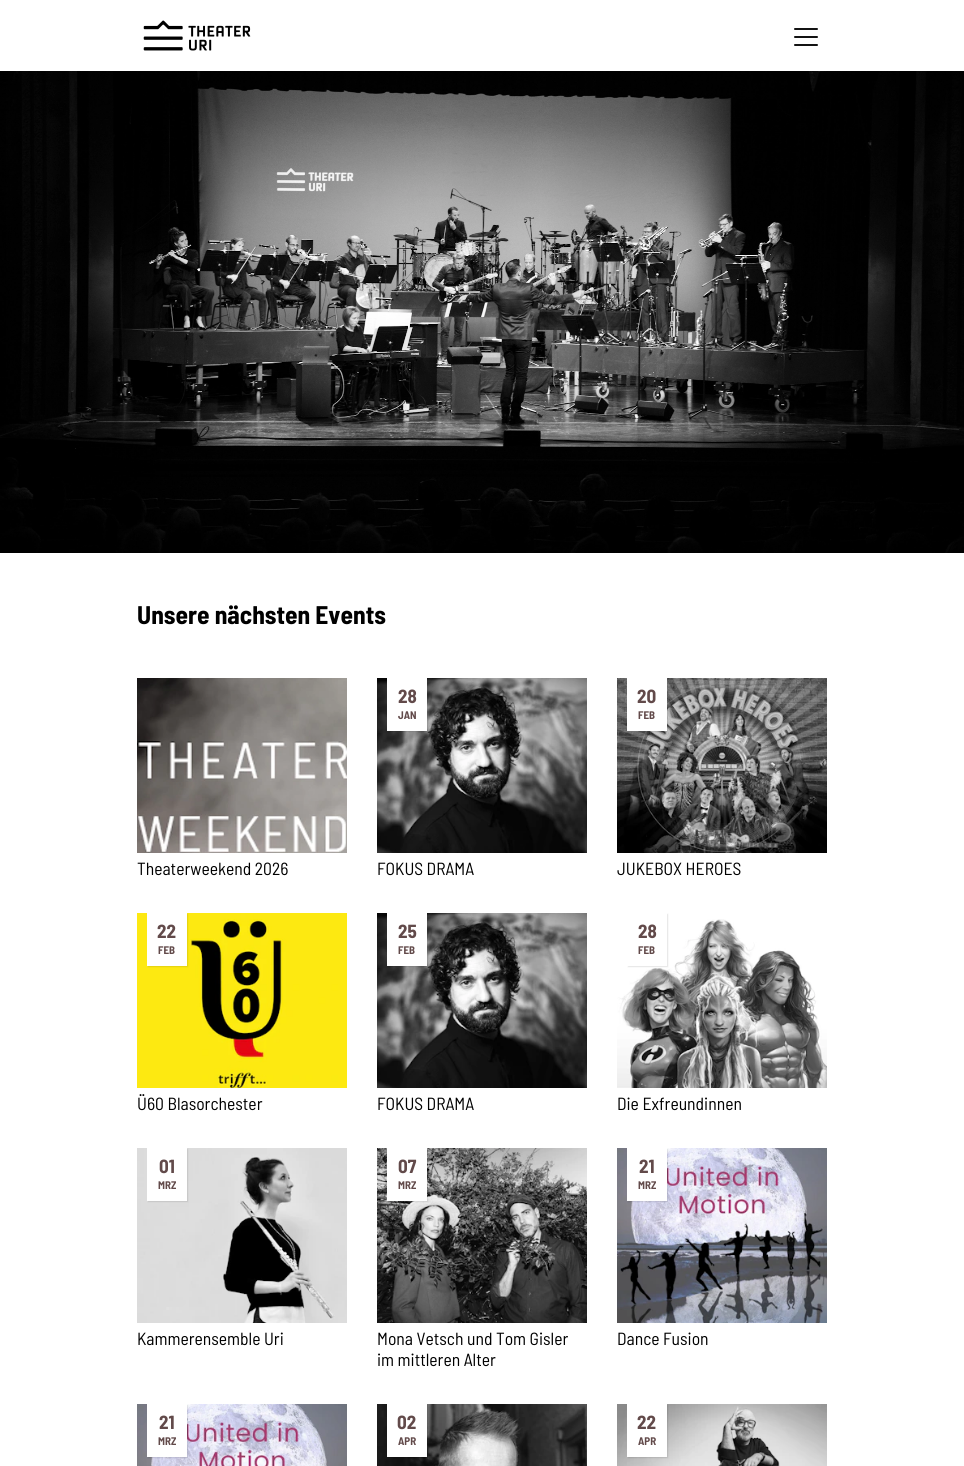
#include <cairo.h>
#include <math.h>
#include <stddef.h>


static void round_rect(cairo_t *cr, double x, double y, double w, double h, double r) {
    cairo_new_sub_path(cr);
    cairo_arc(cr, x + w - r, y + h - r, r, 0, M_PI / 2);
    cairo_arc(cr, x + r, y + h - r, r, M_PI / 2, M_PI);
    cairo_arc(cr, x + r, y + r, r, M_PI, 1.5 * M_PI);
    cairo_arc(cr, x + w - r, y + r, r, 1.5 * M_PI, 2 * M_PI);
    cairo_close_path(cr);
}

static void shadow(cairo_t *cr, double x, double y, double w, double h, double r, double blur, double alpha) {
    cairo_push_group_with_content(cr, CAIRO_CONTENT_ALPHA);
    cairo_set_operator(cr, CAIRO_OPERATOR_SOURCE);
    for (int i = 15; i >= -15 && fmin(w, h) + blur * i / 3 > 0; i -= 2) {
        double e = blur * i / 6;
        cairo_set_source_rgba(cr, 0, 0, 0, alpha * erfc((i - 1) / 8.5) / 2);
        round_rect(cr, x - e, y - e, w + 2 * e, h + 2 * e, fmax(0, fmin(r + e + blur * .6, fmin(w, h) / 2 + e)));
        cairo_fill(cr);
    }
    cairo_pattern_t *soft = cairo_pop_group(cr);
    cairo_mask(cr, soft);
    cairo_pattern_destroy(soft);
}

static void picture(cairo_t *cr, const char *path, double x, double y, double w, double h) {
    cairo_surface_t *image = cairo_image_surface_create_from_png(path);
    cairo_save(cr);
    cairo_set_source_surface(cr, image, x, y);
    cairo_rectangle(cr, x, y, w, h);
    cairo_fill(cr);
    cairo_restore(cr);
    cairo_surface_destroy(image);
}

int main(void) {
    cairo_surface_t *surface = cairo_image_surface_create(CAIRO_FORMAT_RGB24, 964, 1466);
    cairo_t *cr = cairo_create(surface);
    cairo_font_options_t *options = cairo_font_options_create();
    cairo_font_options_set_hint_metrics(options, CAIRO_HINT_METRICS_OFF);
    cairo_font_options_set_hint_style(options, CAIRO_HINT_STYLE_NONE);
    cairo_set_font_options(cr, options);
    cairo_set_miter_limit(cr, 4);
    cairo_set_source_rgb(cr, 1, 1, 1);
    cairo_paint(cr);
    picture(cr, "img1.png", 143, 20, 108, 31);
    cairo_set_source_rgb(cr, 0.078, 0.078, 0.078);
    round_rect(cr, 794, 28, 24, 2, 1);
    cairo_fill(cr);
    round_rect(cr, 794, 36, 24, 2, 1);
    cairo_fill(cr);
    round_rect(cr, 794, 44, 24, 2, 1);
    cairo_fill(cr);
    picture(cr, "img2.png", 0, 71, 964, 482);
    cairo_select_font_face(cr, "Barlow Semi Condensed", CAIRO_FONT_SLANT_NORMAL, CAIRO_FONT_WEIGHT_BOLD);
    cairo_set_font_size(cr, 25.5);
    cairo_set_source_rgb(cr, 0, 0, 0);
    cairo_move_to(cr, 137, 624);
    cairo_show_text(cr, "Unsere nächsten Events");
    picture(cr, "img3.png", 137, 678, 210, 175);
    cairo_select_font_face(cr, "Barlow Semi Condensed", CAIRO_FONT_SLANT_NORMAL, CAIRO_FONT_WEIGHT_NORMAL);
    cairo_set_font_size(cr, 17.6);
    cairo_move_to(cr, 137, 875);
    cairo_show_text(cr, "Theaterweekend 2026");
    picture(cr, "img4.png", 377, 678, 210, 175);
    cairo_set_source_rgb(cr, 0, 0, 0);
    shadow(cr, 388, 679, 40, 53, 0, 0.5, 0.1);
    cairo_set_source_rgb(cr, 1, 1, 1);
    cairo_rectangle(cr, 387, 678, 40, 53);
    cairo_fill(cr);
    cairo_select_font_face(cr, "Barlow Semi Condensed", CAIRO_FONT_SLANT_NORMAL, CAIRO_FONT_WEIGHT_BOLD);
    cairo_set_font_size(cr, 19);
    cairo_set_source_rgb(cr, 0.384, 0.29, 0.29);
    cairo_move_to(cr, 398, 703);
    cairo_show_text(cr, "28");
    cairo_set_font_size(cr, 11);
    cairo_move_to(cr, 398, 719);
    cairo_show_text(cr, "JAN");
    cairo_select_font_face(cr, "Barlow Semi Condensed", CAIRO_FONT_SLANT_NORMAL, CAIRO_FONT_WEIGHT_NORMAL);
    cairo_set_font_size(cr, 17.6);
    cairo_set_source_rgb(cr, 0, 0, 0);
    cairo_move_to(cr, 377, 875);
    cairo_show_text(cr, "FOKUS DRAMA");
    picture(cr, "img5.png", 617, 678, 210, 175);
    cairo_set_source_rgb(cr, 0, 0, 0);
    shadow(cr, 628, 679, 40, 53, 0, 0.5, 0.1);
    cairo_set_source_rgb(cr, 1, 1, 1);
    cairo_rectangle(cr, 627, 678, 40, 53);
    cairo_fill(cr);
    cairo_select_font_face(cr, "Barlow Semi Condensed", CAIRO_FONT_SLANT_NORMAL, CAIRO_FONT_WEIGHT_BOLD);
    cairo_set_font_size(cr, 19);
    cairo_set_source_rgb(cr, 0.384, 0.29, 0.29);
    cairo_move_to(cr, 637, 703);
    cairo_show_text(cr, "20");
    cairo_set_font_size(cr, 11);
    cairo_move_to(cr, 638, 719);
    cairo_show_text(cr, "FEB");
    cairo_select_font_face(cr, "Barlow Semi Condensed", CAIRO_FONT_SLANT_NORMAL, CAIRO_FONT_WEIGHT_NORMAL);
    cairo_set_font_size(cr, 17.6);
    cairo_set_source_rgb(cr, 0, 0, 0);
    cairo_move_to(cr, 617, 875);
    cairo_show_text(cr, "JUKEBOX HEROES");
    picture(cr, "img6.png", 137, 913, 210, 175);
    cairo_set_source_rgb(cr, 0, 0, 0);
    shadow(cr, 148, 914, 40, 53, 0, 0.5, 0.1);
    cairo_set_source_rgb(cr, 1, 1, 1);
    cairo_rectangle(cr, 147, 913, 40, 53);
    cairo_fill(cr);
    cairo_select_font_face(cr, "Barlow Semi Condensed", CAIRO_FONT_SLANT_NORMAL, CAIRO_FONT_WEIGHT_BOLD);
    cairo_set_font_size(cr, 19);
    cairo_set_source_rgb(cr, 0.384, 0.29, 0.29);
    cairo_move_to(cr, 157, 938);
    cairo_show_text(cr, "22");
    cairo_set_font_size(cr, 11);
    cairo_move_to(cr, 158, 954);
    cairo_show_text(cr, "FEB");
    cairo_select_font_face(cr, "Barlow Semi Condensed", CAIRO_FONT_SLANT_NORMAL, CAIRO_FONT_WEIGHT_NORMAL);
    cairo_set_font_size(cr, 17.6);
    cairo_set_source_rgb(cr, 0, 0, 0);
    cairo_move_to(cr, 137, 1110);
    cairo_show_text(cr, "Ü60 Blasorchester");
    picture(cr, "img4.png", 377, 913, 210, 175);
    cairo_set_source_rgb(cr, 0, 0, 0);
    shadow(cr, 388, 914, 40, 53, 0, 0.5, 0.1);
    cairo_set_source_rgb(cr, 1, 1, 1);
    cairo_rectangle(cr, 387, 913, 40, 53);
    cairo_fill(cr);
    cairo_select_font_face(cr, "Barlow Semi Condensed", CAIRO_FONT_SLANT_NORMAL, CAIRO_FONT_WEIGHT_BOLD);
    cairo_set_font_size(cr, 19);
    cairo_set_source_rgb(cr, 0.384, 0.29, 0.29);
    cairo_move_to(cr, 398, 938);
    cairo_show_text(cr, "25");
    cairo_set_font_size(cr, 11);
    cairo_move_to(cr, 398, 954);
    cairo_show_text(cr, "FEB");
    cairo_select_font_face(cr, "Barlow Semi Condensed", CAIRO_FONT_SLANT_NORMAL, CAIRO_FONT_WEIGHT_NORMAL);
    cairo_set_font_size(cr, 17.6);
    cairo_set_source_rgb(cr, 0, 0, 0);
    cairo_move_to(cr, 377, 1110);
    cairo_show_text(cr, "FOKUS DRAMA");
    picture(cr, "img7.png", 617, 919, 210, 169);
    cairo_save(cr);
    cairo_set_fill_rule(cr, CAIRO_FILL_RULE_EVEN_ODD);
    cairo_new_path(cr);
    cairo_move_to(cr, 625, 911);
    cairo_line_to(cr, 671, 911);
    cairo_line_to(cr, 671, 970);
    cairo_line_to(cr, 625, 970);
    cairo_close_path(cr);
    cairo_move_to(cr, 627, 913);
    cairo_line_to(cr, 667, 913);
    cairo_line_to(cr, 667, 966);
    cairo_line_to(cr, 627, 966);
    cairo_close_path(cr);
    cairo_clip(cr);
    cairo_set_source_rgb(cr, 0, 0, 0);
    shadow(cr, 628, 914, 40, 53, 0, 0.5, 0.1);
    cairo_restore(cr);
    cairo_select_font_face(cr, "Barlow Semi Condensed", CAIRO_FONT_SLANT_NORMAL, CAIRO_FONT_WEIGHT_BOLD);
    cairo_set_font_size(cr, 19);
    cairo_set_source_rgb(cr, 0.384, 0.29, 0.29);
    cairo_move_to(cr, 638, 938);
    cairo_show_text(cr, "28");
    cairo_set_font_size(cr, 11);
    cairo_move_to(cr, 638, 954);
    cairo_show_text(cr, "FEB");
    cairo_select_font_face(cr, "Barlow Semi Condensed", CAIRO_FONT_SLANT_NORMAL, CAIRO_FONT_WEIGHT_NORMAL);
    cairo_set_font_size(cr, 17.6);
    cairo_set_source_rgb(cr, 0, 0, 0);
    cairo_move_to(cr, 617, 1110);
    cairo_show_text(cr, "Die Exfreundinnen");
    picture(cr, "img8.png", 137, 1148, 210, 175);
    cairo_set_source_rgb(cr, 0, 0, 0);
    shadow(cr, 148, 1149, 40, 53, 0, 0.5, 0.1);
    cairo_set_source_rgb(cr, 1, 1, 1);
    cairo_rectangle(cr, 147, 1148, 40, 53);
    cairo_fill(cr);
    cairo_select_font_face(cr, "Barlow Semi Condensed", CAIRO_FONT_SLANT_NORMAL, CAIRO_FONT_WEIGHT_BOLD);
    cairo_set_font_size(cr, 19);
    cairo_set_source_rgb(cr, 0.384, 0.29, 0.29);
    cairo_move_to(cr, 159, 1173);
    cairo_show_text(cr, "01");
    cairo_set_font_size(cr, 11);
    cairo_move_to(cr, 158, 1189);
    cairo_show_text(cr, "MRZ");
    cairo_select_font_face(cr, "Barlow Semi Condensed", CAIRO_FONT_SLANT_NORMAL, CAIRO_FONT_WEIGHT_NORMAL);
    cairo_set_font_size(cr, 17.6);
    cairo_set_source_rgb(cr, 0, 0, 0);
    cairo_move_to(cr, 137, 1345);
    cairo_show_text(cr, "Kammerensemble Uri");
    picture(cr, "img9.png", 377, 1148, 210, 175);
    cairo_set_source_rgb(cr, 0, 0, 0);
    shadow(cr, 388, 1149, 40, 53, 0, 0.5, 0.1);
    cairo_set_source_rgb(cr, 1, 1, 1);
    cairo_rectangle(cr, 387, 1148, 40, 53);
    cairo_fill(cr);
    cairo_select_font_face(cr, "Barlow Semi Condensed", CAIRO_FONT_SLANT_NORMAL, CAIRO_FONT_WEIGHT_BOLD);
    cairo_set_font_size(cr, 19);
    cairo_set_source_rgb(cr, 0.384, 0.29, 0.29);
    cairo_move_to(cr, 398, 1173);
    cairo_show_text(cr, "07");
    cairo_set_font_size(cr, 11);
    cairo_move_to(cr, 398, 1189);
    cairo_show_text(cr, "MRZ");
    cairo_select_font_face(cr, "Barlow Semi Condensed", CAIRO_FONT_SLANT_NORMAL, CAIRO_FONT_WEIGHT_NORMAL);
    cairo_set_font_size(cr, 17.6);
    cairo_set_source_rgb(cr, 0, 0, 0);
    cairo_move_to(cr, 377, 1345);
    cairo_show_text(cr, "Mona Vetsch und Tom Gisler");
    cairo_move_to(cr, 377, 1366);
    cairo_show_text(cr, "im mittleren Alter");
    picture(cr, "img10.png", 617, 1148, 210, 175);
    cairo_set_source_rgb(cr, 0, 0, 0);
    shadow(cr, 628, 1149, 40, 53, 0, 0.5, 0.1);
    cairo_set_source_rgb(cr, 1, 1, 1);
    cairo_rectangle(cr, 627, 1148, 40, 53);
    cairo_fill(cr);
    cairo_select_font_face(cr, "Barlow Semi Condensed", CAIRO_FONT_SLANT_NORMAL, CAIRO_FONT_WEIGHT_BOLD);
    cairo_set_font_size(cr, 19);
    cairo_set_source_rgb(cr, 0.384, 0.29, 0.29);
    cairo_move_to(cr, 639, 1173);
    cairo_show_text(cr, "21");
    cairo_set_font_size(cr, 11);
    cairo_move_to(cr, 638, 1189);
    cairo_show_text(cr, "MRZ");
    cairo_select_font_face(cr, "Barlow Semi Condensed", CAIRO_FONT_SLANT_NORMAL, CAIRO_FONT_WEIGHT_NORMAL);
    cairo_set_font_size(cr, 17.6);
    cairo_set_source_rgb(cr, 0, 0, 0);
    cairo_move_to(cr, 617, 1345);
    cairo_show_text(cr, "Dance Fusion");
    picture(cr, "img11.png", 137, 1404, 210, 62);
    cairo_set_source_rgb(cr, 0, 0, 0);
    shadow(cr, 148, 1405, 40, 53, 0, 0.5, 0.1);
    cairo_set_source_rgb(cr, 1, 1, 1);
    cairo_rectangle(cr, 147, 1404, 40, 53);
    cairo_fill(cr);
    cairo_select_font_face(cr, "Barlow Semi Condensed", CAIRO_FONT_SLANT_NORMAL, CAIRO_FONT_WEIGHT_BOLD);
    cairo_set_font_size(cr, 19);
    cairo_set_source_rgb(cr, 0.384, 0.29, 0.29);
    cairo_move_to(cr, 159, 1429);
    cairo_show_text(cr, "21");
    cairo_set_font_size(cr, 11);
    cairo_move_to(cr, 158, 1445);
    cairo_show_text(cr, "MRZ");
    picture(cr, "img12.png", 377, 1404, 210, 62);
    cairo_set_source_rgb(cr, 0, 0, 0);
    shadow(cr, 388, 1405, 40, 53, 0, 0.5, 0.1);
    cairo_set_source_rgb(cr, 1, 1, 1);
    cairo_rectangle(cr, 387, 1404, 40, 53);
    cairo_fill(cr);
    cairo_set_font_size(cr, 19);
    cairo_set_source_rgb(cr, 0.384, 0.29, 0.29);
    cairo_move_to(cr, 397, 1429);
    cairo_show_text(cr, "02");
    cairo_set_font_size(cr, 11);
    cairo_move_to(cr, 398, 1445);
    cairo_show_text(cr, "APR");
    picture(cr, "img13.png", 617, 1404, 210, 62);
    cairo_set_source_rgb(cr, 0, 0, 0);
    shadow(cr, 628, 1405, 40, 53, 0, 0.5, 0.1);
    cairo_set_source_rgb(cr, 1, 1, 1);
    cairo_rectangle(cr, 627, 1404, 40, 53);
    cairo_fill(cr);
    cairo_set_font_size(cr, 19);
    cairo_set_source_rgb(cr, 0.384, 0.29, 0.29);
    cairo_move_to(cr, 637, 1429);
    cairo_show_text(cr, "22");
    cairo_set_font_size(cr, 11);
    cairo_move_to(cr, 638, 1445);
    cairo_show_text(cr, "APR");
    cairo_surface_write_to_png(surface, "page.png");
    cairo_font_options_destroy(options);
    cairo_destroy(cr);
    cairo_surface_destroy(surface);
    return 0;
}
